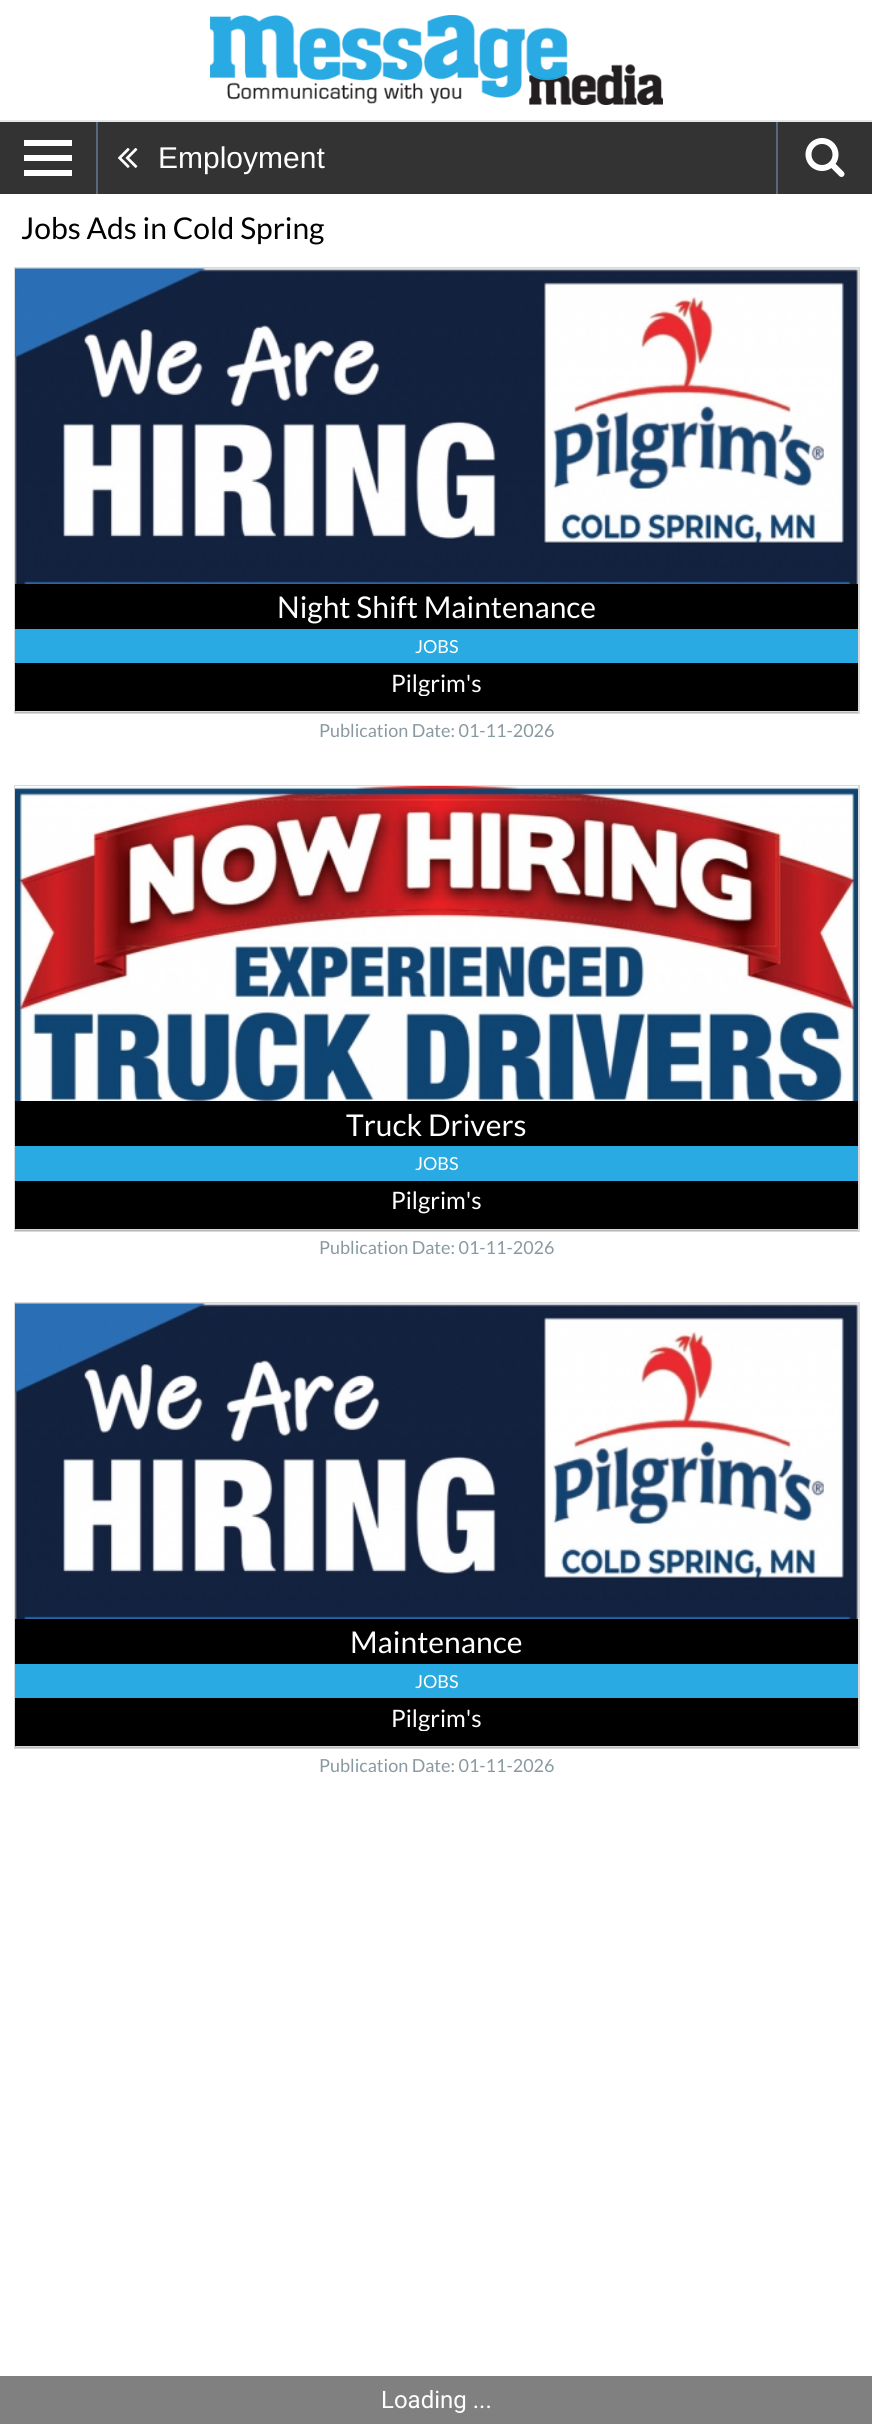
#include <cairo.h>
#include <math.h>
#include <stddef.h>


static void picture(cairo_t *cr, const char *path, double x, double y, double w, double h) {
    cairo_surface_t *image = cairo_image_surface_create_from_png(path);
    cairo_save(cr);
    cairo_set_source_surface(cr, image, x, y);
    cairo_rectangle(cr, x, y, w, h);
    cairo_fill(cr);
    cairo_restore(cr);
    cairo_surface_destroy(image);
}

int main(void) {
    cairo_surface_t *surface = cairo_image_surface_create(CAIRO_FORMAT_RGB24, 872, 2424);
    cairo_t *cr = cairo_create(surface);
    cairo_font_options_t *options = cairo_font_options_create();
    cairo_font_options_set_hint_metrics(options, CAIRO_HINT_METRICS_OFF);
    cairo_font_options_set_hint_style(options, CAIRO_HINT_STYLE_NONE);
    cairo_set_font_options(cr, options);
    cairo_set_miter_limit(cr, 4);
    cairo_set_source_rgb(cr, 1, 1, 1);
    cairo_paint(cr);
    cairo_set_source_rgba(cr, 0, 0, 0, 0.1);
    cairo_rectangle(cr, 0, 120, 872, 2);
    cairo_fill(cr);
    picture(cr, "img1.png", 210, 15, 453, 90);
    cairo_set_source_rgb(cr, 0.2, 0.2, 0.2);
    cairo_rectangle(cr, 0, 122, 872, 72);
    cairo_fill(cr);
    cairo_set_source_rgb(cr, 1, 1, 1);
    cairo_rectangle(cr, 24, 140, 48, 6);
    cairo_fill(cr);
    cairo_rectangle(cr, 24, 155, 48, 6);
    cairo_fill(cr);
    cairo_rectangle(cr, 24, 170, 48, 6);
    cairo_fill(cr);
    cairo_set_source_rgb(cr, 0.341, 0.404, 0.486);
    cairo_rectangle(cr, 776, 122, 2, 72);
    cairo_fill(cr);
    cairo_rectangle(cr, 96, 122, 2, 72);
    cairo_fill(cr);
    picture(cr, "img2.png", 118, 148, 20, 20);
    cairo_select_font_face(cr, "Liberation Sans", CAIRO_FONT_SLANT_NORMAL, CAIRO_FONT_WEIGHT_NORMAL);
    cairo_set_font_size(cr, 30);
    cairo_set_source_rgb(cr, 1, 1, 1);
    cairo_move_to(cr, 158, 168);
    cairo_show_text(cr, "Employment");
    picture(cr, "img3.png", 805, 138, 40, 39);
    cairo_select_font_face(cr, "Lato", CAIRO_FONT_SLANT_NORMAL, CAIRO_FONT_WEIGHT_NORMAL);
    cairo_set_source_rgb(cr, 0, 0, 0);
    cairo_move_to(cr, 21, 239);
    cairo_show_text(cr, "Jobs Ads in Cold Spring");
    cairo_rectangle(cr, 15, 268, 844, 445);
    cairo_set_source_rgb(cr, 0.851, 0.851, 0.851);
    cairo_stroke(cr);
    cairo_set_source_rgba(cr, 0, 0, 0, 0.15);
    cairo_rectangle(cr, 15, 711, 843, 2);
    cairo_fill(cr);
    picture(cr, "img4.png", 15, 268, 843, 316);
    cairo_set_source_rgb(cr, 0, 0, 0);
    cairo_rectangle(cr, 15, 584, 843, 127);
    cairo_fill(cr);
    cairo_set_source_rgb(cr, 1, 1, 1);
    cairo_move_to(cr, 277, 618);
    cairo_show_text(cr, "Night Shift Maintenance");
    cairo_set_source_rgb(cr, 0.161, 0.667, 0.886);
    cairo_rectangle(cr, 15, 629, 843, 34);
    cairo_fill(cr);
    cairo_set_font_size(cr, 18);
    cairo_set_source_rgb(cr, 1, 1, 1);
    cairo_move_to(cr, 415, 653);
    cairo_show_text(cr, "JOBS");
    cairo_save(cr);
    cairo_rectangle(cr, 21, 668, 831, 28);
    cairo_clip(cr);
    cairo_set_font_size(cr, 24);
    cairo_move_to(cr, 391, 692);
    cairo_show_text(cr, "Pilgrim's");
    cairo_restore(cr);
    cairo_set_source_rgb(cr, 0.533, 0.6, 0.627);
    cairo_move_to(cr, 319, 737);
    cairo_show_text(cr, "Publication Date: 01-11-2026");
    cairo_rectangle(cr, 15, 786, 844, 445);
    cairo_set_source_rgb(cr, 0.851, 0.851, 0.851);
    cairo_stroke(cr);
    cairo_set_source_rgba(cr, 0, 0, 0, 0.15);
    cairo_rectangle(cr, 15, 1229, 843, 2);
    cairo_fill(cr);
    picture(cr, "img5.png", 15, 786, 843, 315);
    cairo_set_source_rgb(cr, 0, 0, 0);
    cairo_rectangle(cr, 15, 1101, 843, 128);
    cairo_fill(cr);
    cairo_set_font_size(cr, 30);
    cairo_set_source_rgb(cr, 1, 1, 1);
    cairo_move_to(cr, 346, 1136);
    cairo_show_text(cr, "Truck Drivers");
    cairo_set_source_rgb(cr, 0.161, 0.667, 0.886);
    cairo_rectangle(cr, 15, 1146, 843, 35);
    cairo_fill(cr);
    cairo_set_font_size(cr, 18);
    cairo_set_source_rgb(cr, 1, 1, 1);
    cairo_move_to(cr, 415, 1170);
    cairo_show_text(cr, "JOBS");
    cairo_set_font_size(cr, 24);
    cairo_move_to(cr, 391, 1209);
    cairo_show_text(cr, "Pilgrim's");
    cairo_set_font_size(cr, 18);
    cairo_set_source_rgb(cr, 0.533, 0.6, 0.627);
    cairo_move_to(cr, 319, 1254);
    cairo_show_text(cr, "Publication Date: 01-11-2026");
    cairo_rectangle(cr, 15, 1303, 844, 445);
    cairo_set_source_rgb(cr, 0.851, 0.851, 0.851);
    cairo_stroke(cr);
    cairo_set_source_rgba(cr, 0, 0, 0, 0.15);
    cairo_rectangle(cr, 15, 1746, 843, 2);
    cairo_fill(cr);
    picture(cr, "img4.png", 15, 1303, 843, 316);
    cairo_set_source_rgb(cr, 0, 0, 0);
    cairo_rectangle(cr, 15, 1619, 843, 127);
    cairo_fill(cr);
    cairo_set_font_size(cr, 30);
    cairo_set_source_rgb(cr, 1, 1, 1);
    cairo_move_to(cr, 350, 1653);
    cairo_show_text(cr, "Maintenance");
    cairo_set_source_rgb(cr, 0.161, 0.667, 0.886);
    cairo_rectangle(cr, 15, 1664, 843, 34);
    cairo_fill(cr);
    cairo_set_font_size(cr, 18);
    cairo_set_source_rgb(cr, 1, 1, 1);
    cairo_move_to(cr, 415, 1688);
    cairo_show_text(cr, "JOBS");
    cairo_save(cr);
    cairo_rectangle(cr, 21, 1703, 831, 28);
    cairo_clip(cr);
    cairo_set_font_size(cr, 24);
    cairo_move_to(cr, 391, 1727);
    cairo_show_text(cr, "Pilgrim's");
    cairo_restore(cr);
    cairo_set_source_rgb(cr, 0.533, 0.6, 0.627);
    cairo_move_to(cr, 319, 1772);
    cairo_show_text(cr, "Publication Date: 01-11-2026");
    cairo_set_source_rgb(cr, 0.502, 0.502, 0.502);
    cairo_rectangle(cr, 0, 2376, 872, 48);
    cairo_fill(cr);
    cairo_select_font_face(cr, "Roboto", CAIRO_FONT_SLANT_NORMAL, CAIRO_FONT_WEIGHT_NORMAL);
    cairo_set_font_size(cr, 24);
    cairo_set_source_rgb(cr, 1, 1, 1);
    cairo_move_to(cr, 381, 2408);
    cairo_show_text(cr, "Loading ...");
    cairo_surface_write_to_png(surface, "page.png");
    cairo_font_options_destroy(options);
    cairo_destroy(cr);
    cairo_surface_destroy(surface);
    return 0;
}
